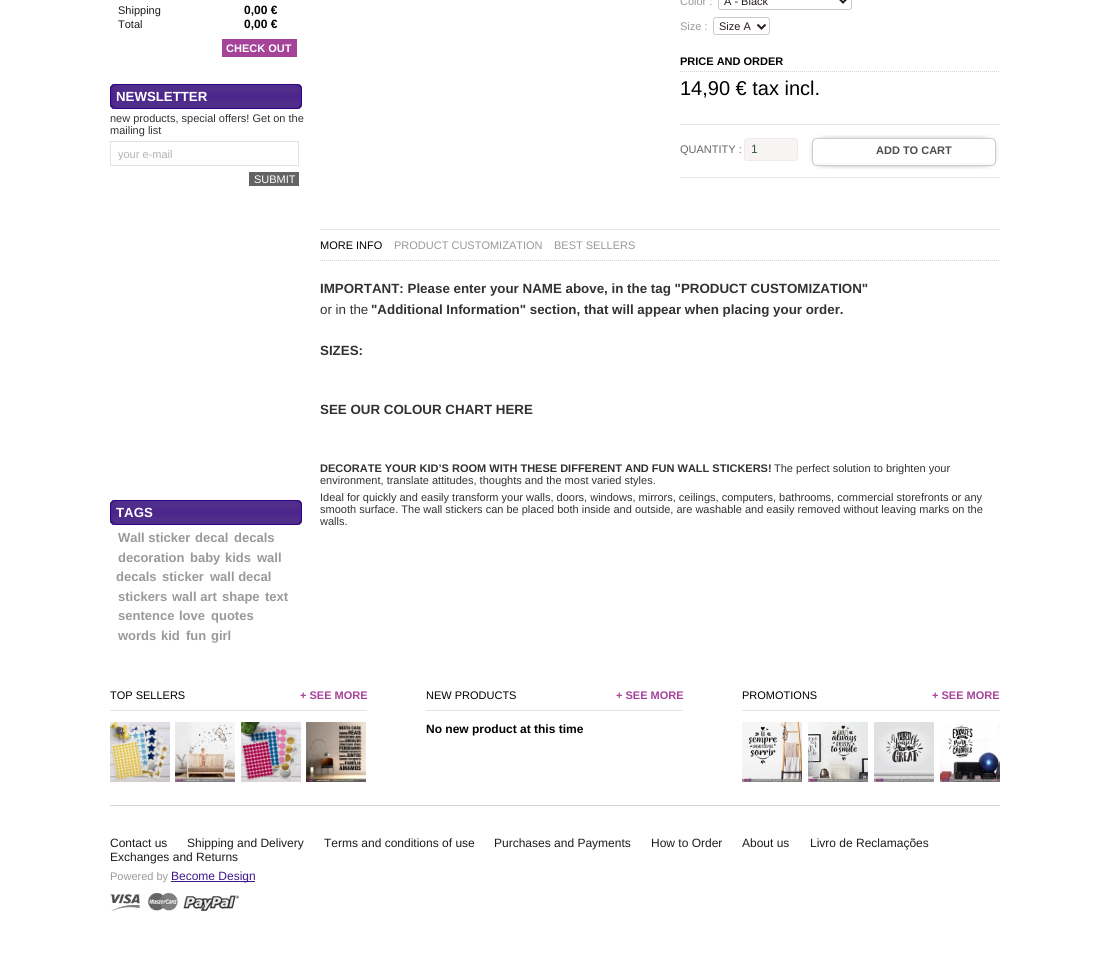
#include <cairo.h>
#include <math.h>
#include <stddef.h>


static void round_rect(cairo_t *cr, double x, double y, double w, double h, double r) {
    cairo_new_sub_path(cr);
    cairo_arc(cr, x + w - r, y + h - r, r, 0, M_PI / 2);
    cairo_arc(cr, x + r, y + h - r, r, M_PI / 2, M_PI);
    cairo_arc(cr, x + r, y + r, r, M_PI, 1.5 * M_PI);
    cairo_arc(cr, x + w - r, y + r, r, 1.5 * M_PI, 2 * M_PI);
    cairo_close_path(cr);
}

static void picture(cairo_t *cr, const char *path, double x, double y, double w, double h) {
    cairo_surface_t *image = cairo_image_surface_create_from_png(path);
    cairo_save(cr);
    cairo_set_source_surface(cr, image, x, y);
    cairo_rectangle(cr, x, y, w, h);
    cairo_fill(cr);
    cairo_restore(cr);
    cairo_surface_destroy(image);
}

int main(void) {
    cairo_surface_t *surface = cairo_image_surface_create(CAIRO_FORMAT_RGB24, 1109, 975);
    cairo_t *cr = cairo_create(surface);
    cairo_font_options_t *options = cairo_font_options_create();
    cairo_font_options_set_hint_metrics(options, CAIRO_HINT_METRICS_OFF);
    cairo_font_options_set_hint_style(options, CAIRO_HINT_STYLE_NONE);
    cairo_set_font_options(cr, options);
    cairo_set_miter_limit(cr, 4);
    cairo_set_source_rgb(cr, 1, 1, 1);
    cairo_paint(cr);
    cairo_select_font_face(cr, "Liberation Sans", CAIRO_FONT_SLANT_NORMAL, CAIRO_FONT_WEIGHT_NORMAL);
    cairo_set_font_size(cr, 11);
    cairo_set_source_rgb(cr, 0.114, 0.106, 0.106);
    cairo_move_to(cr, 118, 14);
    cairo_show_text(cr, "Shipping");
    cairo_select_font_face(cr, "Liberation Sans", CAIRO_FONT_SLANT_NORMAL, CAIRO_FONT_WEIGHT_BOLD);
    cairo_set_font_size(cr, 12);
    cairo_set_source_rgb(cr, 0, 0, 0);
    cairo_move_to(cr, 244, 14);
    cairo_show_text(cr, "0,00 €");
    cairo_select_font_face(cr, "Liberation Sans", CAIRO_FONT_SLANT_NORMAL, CAIRO_FONT_WEIGHT_NORMAL);
    cairo_set_font_size(cr, 11);
    cairo_set_source_rgb(cr, 0.114, 0.106, 0.106);
    cairo_move_to(cr, 118, 28);
    cairo_show_text(cr, "Total");
    cairo_select_font_face(cr, "Liberation Sans", CAIRO_FONT_SLANT_NORMAL, CAIRO_FONT_WEIGHT_BOLD);
    cairo_set_font_size(cr, 12);
    cairo_set_source_rgb(cr, 0, 0, 0);
    cairo_move_to(cr, 244, 28);
    cairo_show_text(cr, "0,00 €");
    cairo_set_source_rgb(cr, 0.647, 0.263, 0.6);
    cairo_rectangle(cr, 222, 39, 75, 18);
    cairo_fill(cr);
    cairo_set_font_size(cr, 11);
    cairo_set_source_rgb(cr, 1, 1, 1);
    cairo_move_to(cr, 226, 52);
    cairo_show_text(cr, "CHECK OUT");
    picture(cr, "img1.png", 110, 84, 192, 25);
    cairo_set_font_size(cr, 13.25);
    cairo_move_to(cr, 116, 101);
    cairo_show_text(cr, "NEWSLETTER");
    cairo_select_font_face(cr, "Liberation Sans", CAIRO_FONT_SLANT_NORMAL, CAIRO_FONT_WEIGHT_NORMAL);
    cairo_set_font_size(cr, 11);
    cairo_set_source_rgb(cr, 0.196, 0.196, 0.196);
    cairo_move_to(cr, 110, 122);
    cairo_show_text(cr, "new products, special offers! Get on the");
    cairo_move_to(cr, 110, 134);
    cairo_show_text(cr, "mailing list");
    cairo_rectangle(cr, 110.5, 141.5, 188, 24);
    cairo_set_source_rgb(cr, 0.89, 0.89, 0.89);
    cairo_set_line_width(cr, 1);
    cairo_stroke(cr);
    cairo_save(cr);
    cairo_rectangle(cr, 118, 148, 177, 12);
    cairo_clip(cr);
    cairo_set_source_rgb(cr, 0.698, 0.69, 0.702);
    cairo_move_to(cr, 118, 158);
    cairo_show_text(cr, "your e-mail");
    cairo_restore(cr);
    cairo_set_source_rgb(cr, 0.388, 0.388, 0.388);
    cairo_rectangle(cr, 249, 172, 50, 14);
    cairo_fill(cr);
    cairo_set_source_rgb(cr, 1, 1, 1);
    cairo_move_to(cr, 254, 183);
    cairo_show_text(cr, "SUBMIT");
    picture(cr, "img1.png", 110, 500, 192, 25);
    cairo_select_font_face(cr, "Liberation Sans", CAIRO_FONT_SLANT_NORMAL, CAIRO_FONT_WEIGHT_BOLD);
    cairo_set_font_size(cr, 13.25);
    cairo_move_to(cr, 116, 517);
    cairo_show_text(cr, "TAGS");
    cairo_set_font_size(cr, 13);
    cairo_set_source_rgb(cr, 0.6, 0.6, 0.6);
    cairo_move_to(cr, 118, 542);
    cairo_show_text(cr, "Wall sticker");
    cairo_move_to(cr, 195, 542);
    cairo_show_text(cr, "decal");
    cairo_move_to(cr, 234, 542);
    cairo_show_text(cr, "decals");
    cairo_move_to(cr, 118, 562);
    cairo_show_text(cr, "decoration");
    cairo_move_to(cr, 190, 562);
    cairo_show_text(cr, "baby");
    cairo_move_to(cr, 225, 562);
    cairo_show_text(cr, "kids");
    cairo_move_to(cr, 257, 562);
    cairo_show_text(cr, "wall");
    cairo_move_to(cr, 116, 581);
    cairo_show_text(cr, "decals");
    cairo_move_to(cr, 162, 581);
    cairo_show_text(cr, "sticker");
    cairo_move_to(cr, 210, 581);
    cairo_show_text(cr, "wall decal");
    cairo_move_to(cr, 118, 601);
    cairo_show_text(cr, "stickers");
    cairo_move_to(cr, 172, 601);
    cairo_show_text(cr, "wall art");
    cairo_move_to(cr, 222, 601);
    cairo_show_text(cr, "shape");
    cairo_move_to(cr, 265, 601);
    cairo_show_text(cr, "text");
    cairo_move_to(cr, 118, 620);
    cairo_show_text(cr, "sentence");
    cairo_move_to(cr, 179, 620);
    cairo_show_text(cr, "love");
    cairo_move_to(cr, 211, 620);
    cairo_show_text(cr, "quotes");
    cairo_move_to(cr, 118, 640);
    cairo_show_text(cr, "words");
    cairo_move_to(cr, 161, 640);
    cairo_show_text(cr, "kid");
    cairo_move_to(cr, 186, 640);
    cairo_show_text(cr, "fun");
    cairo_move_to(cr, 211, 640);
    cairo_show_text(cr, "girl");
    cairo_select_font_face(cr, "Liberation Sans", CAIRO_FONT_SLANT_NORMAL, CAIRO_FONT_WEIGHT_NORMAL);
    cairo_set_font_size(cr, 11);
    cairo_move_to(cr, 680, 5);
    cairo_show_text(cr, "Color :");
    round_rect(cr, 718.5, -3.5, 133, 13, 2.5);
    cairo_set_source_rgb(cr, 0.8, 0.8, 0.8);
    cairo_stroke(cr);
    cairo_new_path(cr);
    cairo_move_to(cr, 839, -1.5);
    cairo_line_to(cr, 843, 2.5);
    cairo_line_to(cr, 847, -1.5);
    cairo_set_source_rgb(cr, 0.149, 0.11, 0.11);
    cairo_set_line_width(cr, 2);
    cairo_stroke(cr);
    cairo_move_to(cr, 724, 5);
    cairo_show_text(cr, "A - Black");
    cairo_set_source_rgb(cr, 0.6, 0.6, 0.6);
    cairo_move_to(cr, 680, 30);
    cairo_show_text(cr, "Size :");
    round_rect(cr, 713.5, 17.5, 56, 17, 2.5);
    cairo_set_source_rgb(cr, 0.8, 0.8, 0.8);
    cairo_set_line_width(cr, 1);
    cairo_stroke(cr);
    cairo_new_path(cr);
    cairo_move_to(cr, 757.5, 24.5);
    cairo_line_to(cr, 761.5, 28.5);
    cairo_line_to(cr, 765.5, 24.5);
    cairo_set_source_rgb(cr, 0.149, 0.11, 0.11);
    cairo_set_line_width(cr, 2);
    cairo_stroke(cr);
    cairo_move_to(cr, 719, 30);
    cairo_show_text(cr, "Size A");
    cairo_new_path(cr);
    cairo_move_to(cr, 680, 71.5);
    cairo_line_to(cr, 1000, 71.5);
    cairo_set_source_rgb(cr, 0.831, 0.831, 0.831);
    cairo_set_line_width(cr, 1);
    cairo_set_dash(cr, (double[]){1, 1}, 2, 0);
    cairo_stroke(cr);
    cairo_select_font_face(cr, "Liberation Sans", CAIRO_FONT_SLANT_NORMAL, CAIRO_FONT_WEIGHT_BOLD);
    cairo_set_source_rgb(cr, 0, 0, 0);
    cairo_move_to(cr, 680, 65);
    cairo_show_text(cr, "PRICE AND ORDER");
    cairo_select_font_face(cr, "Liberation Sans", CAIRO_FONT_SLANT_NORMAL, CAIRO_FONT_WEIGHT_NORMAL);
    cairo_set_font_size(cr, 20);
    cairo_move_to(cr, 680, 95);
    cairo_show_text(cr, "14,90 € tax incl.");
    cairo_set_source_rgb(cr, 0.902, 0.902, 0.902);
    cairo_rectangle(cr, 680, 124, 320, 1);
    cairo_fill(cr);
    cairo_rectangle(cr, 680, 177, 320, 1);
    cairo_fill(cr);
    cairo_set_font_size(cr, 11);
    cairo_set_source_rgb(cr, 0.4, 0.4, 0.4);
    cairo_move_to(cr, 680, 153);
    cairo_show_text(cr, "QUANTITY :");
    cairo_set_source_rgb(cr, 0.969, 0.957, 0.957);
    round_rect(cr, 744.5, 138.5, 53, 22, 2.5);
    cairo_fill_preserve(cr);
    cairo_set_source_rgb(cr, 0.922, 0.922, 0.922);
    cairo_set_dash(cr, NULL, 0, 0);
    cairo_stroke(cr);
    cairo_set_font_size(cr, 12);
    cairo_set_source_rgb(cr, 0.196, 0.357, 0.227);
    cairo_move_to(cr, 751, 153);
    cairo_show_text(cr, "1");
    picture(cr, "img2.png", 809, 135, 190, 34);
    cairo_select_font_face(cr, "Liberation Sans", CAIRO_FONT_SLANT_NORMAL, CAIRO_FONT_WEIGHT_BOLD);
    cairo_set_font_size(cr, 11);
    cairo_set_source_rgb(cr, 0.302, 0.302, 0.31);
    cairo_move_to(cr, 876, 154);
    cairo_show_text(cr, "ADD TO CART");
    cairo_set_source_rgb(cr, 0.902, 0.902, 0.902);
    cairo_rectangle(cr, 320, 229, 680, 1);
    cairo_fill(cr);
    cairo_new_path(cr);
    cairo_move_to(cr, 320, 260.5);
    cairo_line_to(cr, 1000, 260.5);
    cairo_set_source_rgb(cr, 0.831, 0.831, 0.831);
    cairo_set_dash(cr, (double[]){1, 1}, 2, 0);
    cairo_stroke(cr);
    cairo_select_font_face(cr, "Liberation Sans", CAIRO_FONT_SLANT_NORMAL, CAIRO_FONT_WEIGHT_NORMAL);
    cairo_set_source_rgb(cr, 0, 0, 0);
    cairo_move_to(cr, 320, 249);
    cairo_show_text(cr, "MORE INFO");
    cairo_set_source_rgb(cr, 0.6, 0.6, 0.6);
    cairo_move_to(cr, 394, 249);
    cairo_show_text(cr, "PRODUCT CUSTOMIZATION");
    cairo_move_to(cr, 554, 249);
    cairo_show_text(cr, "BEST SELLERS");
    cairo_select_font_face(cr, "Liberation Sans", CAIRO_FONT_SLANT_NORMAL, CAIRO_FONT_WEIGHT_BOLD);
    cairo_set_font_size(cr, 13.35);
    cairo_set_source_rgb(cr, 0.196, 0.196, 0.196);
    cairo_move_to(cr, 320, 293);
    cairo_show_text(cr, "IMPORTANT: Please enter your NAME above, in the tag \"PRODUCT CUSTOMIZATION\"");
    cairo_select_font_face(cr, "Liberation Sans", CAIRO_FONT_SLANT_NORMAL, CAIRO_FONT_WEIGHT_NORMAL);
    cairo_move_to(cr, 320, 314);
    cairo_show_text(cr, "or in the");
    cairo_select_font_face(cr, "Liberation Sans", CAIRO_FONT_SLANT_NORMAL, CAIRO_FONT_WEIGHT_BOLD);
    cairo_move_to(cr, 371, 314);
    cairo_show_text(cr, "\"Additional Information\" section, that will appear when placing your order.");
    cairo_move_to(cr, 320, 355);
    cairo_show_text(cr, "SIZES:");
    cairo_move_to(cr, 320, 414);
    cairo_show_text(cr, "SEE OUR COLOUR CHART HERE");
    cairo_set_font_size(cr, 11);
    cairo_move_to(cr, 320, 472);
    cairo_show_text(cr, "DECORATE YOUR KID’S ROOM WITH THESE DIFFERENT AND FUN WALL STICKERS!");
    cairo_select_font_face(cr, "Liberation Sans", CAIRO_FONT_SLANT_NORMAL, CAIRO_FONT_WEIGHT_NORMAL);
    cairo_move_to(cr, 774, 472);
    cairo_show_text(cr, "The perfect solution to brighten your");
    cairo_move_to(cr, 320, 484);
    cairo_show_text(cr, "environment, translate attitudes, thoughts and the most varied styles.");
    cairo_move_to(cr, 320, 501);
    cairo_show_text(cr, "Ideal for quickly and easily transform your walls, doors, windows, mirrors, ceilings, computers, bathrooms, commercial storefronts or any");
    cairo_move_to(cr, 320, 513);
    cairo_show_text(cr, "smooth surface. The wall stickers can be placed both inside and outside, are washable and easily removed without leaving marks on the");
    cairo_move_to(cr, 320, 525);
    cairo_show_text(cr, "walls.");
    cairo_set_source_rgb(cr, 0.894, 0.894, 0.894);
    cairo_rectangle(cr, 110, 710, 257, 1);
    cairo_fill(cr);
    cairo_set_source_rgb(cr, 0, 0, 0);
    cairo_move_to(cr, 110, 699);
    cairo_show_text(cr, "TOP SELLERS");
    cairo_select_font_face(cr, "Liberation Sans", CAIRO_FONT_SLANT_NORMAL, CAIRO_FONT_WEIGHT_BOLD);
    cairo_set_source_rgb(cr, 0.647, 0.263, 0.6);
    cairo_move_to(cr, 300, 699);
    cairo_show_text(cr, "+ SEE MORE");
    picture(cr, "img3.png", 110, 722, 60, 60);
    picture(cr, "img4.png", 175, 722, 60, 60);
    picture(cr, "img5.png", 241, 722, 60, 60);
    picture(cr, "img6.png", 306, 722, 60, 60);
    cairo_set_source_rgb(cr, 0.894, 0.894, 0.894);
    cairo_rectangle(cr, 426, 710, 257, 1);
    cairo_fill(cr);
    cairo_select_font_face(cr, "Liberation Sans", CAIRO_FONT_SLANT_NORMAL, CAIRO_FONT_WEIGHT_NORMAL);
    cairo_set_source_rgb(cr, 0, 0, 0);
    cairo_move_to(cr, 426, 699);
    cairo_show_text(cr, "NEW PRODUCTS");
    cairo_select_font_face(cr, "Liberation Sans", CAIRO_FONT_SLANT_NORMAL, CAIRO_FONT_WEIGHT_BOLD);
    cairo_set_source_rgb(cr, 0.647, 0.263, 0.6);
    cairo_move_to(cr, 616, 699);
    cairo_show_text(cr, "+ SEE MORE");
    cairo_set_font_size(cr, 12);
    cairo_set_source_rgb(cr, 0, 0, 0);
    cairo_move_to(cr, 426, 733);
    cairo_show_text(cr, "No new product at this time");
    cairo_set_source_rgb(cr, 0.894, 0.894, 0.894);
    cairo_rectangle(cr, 742, 710, 258, 1);
    cairo_fill(cr);
    cairo_select_font_face(cr, "Liberation Sans", CAIRO_FONT_SLANT_NORMAL, CAIRO_FONT_WEIGHT_NORMAL);
    cairo_set_font_size(cr, 11);
    cairo_set_source_rgb(cr, 0, 0, 0);
    cairo_move_to(cr, 742, 699);
    cairo_show_text(cr, "PROMOTIONS");
    cairo_select_font_face(cr, "Liberation Sans", CAIRO_FONT_SLANT_NORMAL, CAIRO_FONT_WEIGHT_BOLD);
    cairo_set_source_rgb(cr, 0.647, 0.263, 0.6);
    cairo_move_to(cr, 932, 699);
    cairo_show_text(cr, "+ SEE MORE");
    picture(cr, "img7.png", 742, 722, 60, 60);
    picture(cr, "img8.png", 808, 722, 60, 60);
    picture(cr, "img9.png", 874, 722, 60, 60);
    picture(cr, "img10.png", 940, 723, 60, 59);
    cairo_set_source_rgb(cr, 0.831, 0.831, 0.831);
    cairo_rectangle(cr, 110, 805, 890, 1);
    cairo_fill(cr);
    cairo_select_font_face(cr, "Liberation Sans", CAIRO_FONT_SLANT_NORMAL, CAIRO_FONT_WEIGHT_NORMAL);
    cairo_set_font_size(cr, 12);
    cairo_set_source_rgb(cr, 0.114, 0.106, 0.106);
    cairo_move_to(cr, 110, 847);
    cairo_show_text(cr, "Contact us");
    cairo_move_to(cr, 187, 847);
    cairo_show_text(cr, "Shipping and Delivery");
    cairo_move_to(cr, 324, 847);
    cairo_show_text(cr, "Terms and conditions of use");
    cairo_move_to(cr, 494, 847);
    cairo_show_text(cr, "Purchases and Payments");
    cairo_move_to(cr, 651, 847);
    cairo_show_text(cr, "How to Order");
    cairo_move_to(cr, 742, 847);
    cairo_show_text(cr, "About us");
    cairo_move_to(cr, 810, 847);
    cairo_show_text(cr, "Livro de Reclamações");
    cairo_move_to(cr, 110, 861);
    cairo_show_text(cr, "Exchanges and Returns");
    cairo_set_font_size(cr, 11);
    cairo_set_source_rgb(cr, 0.6, 0.6, 0.6);
    cairo_move_to(cr, 110, 880);
    cairo_show_text(cr, "Powered by");
    cairo_set_source_rgb(cr, 0.255, 0.086, 0.541);
    cairo_rectangle(cr, 171, 881, 84, 1);
    cairo_fill(cr);
    cairo_set_font_size(cr, 12);
    cairo_move_to(cr, 171, 880);
    cairo_show_text(cr, "Become Design");
    picture(cr, "img11.png", 110, 893, 129, 18);
    cairo_surface_write_to_png(surface, "page.png");
    cairo_font_options_destroy(options);
    cairo_destroy(cr);
    cairo_surface_destroy(surface);
    return 0;
}
